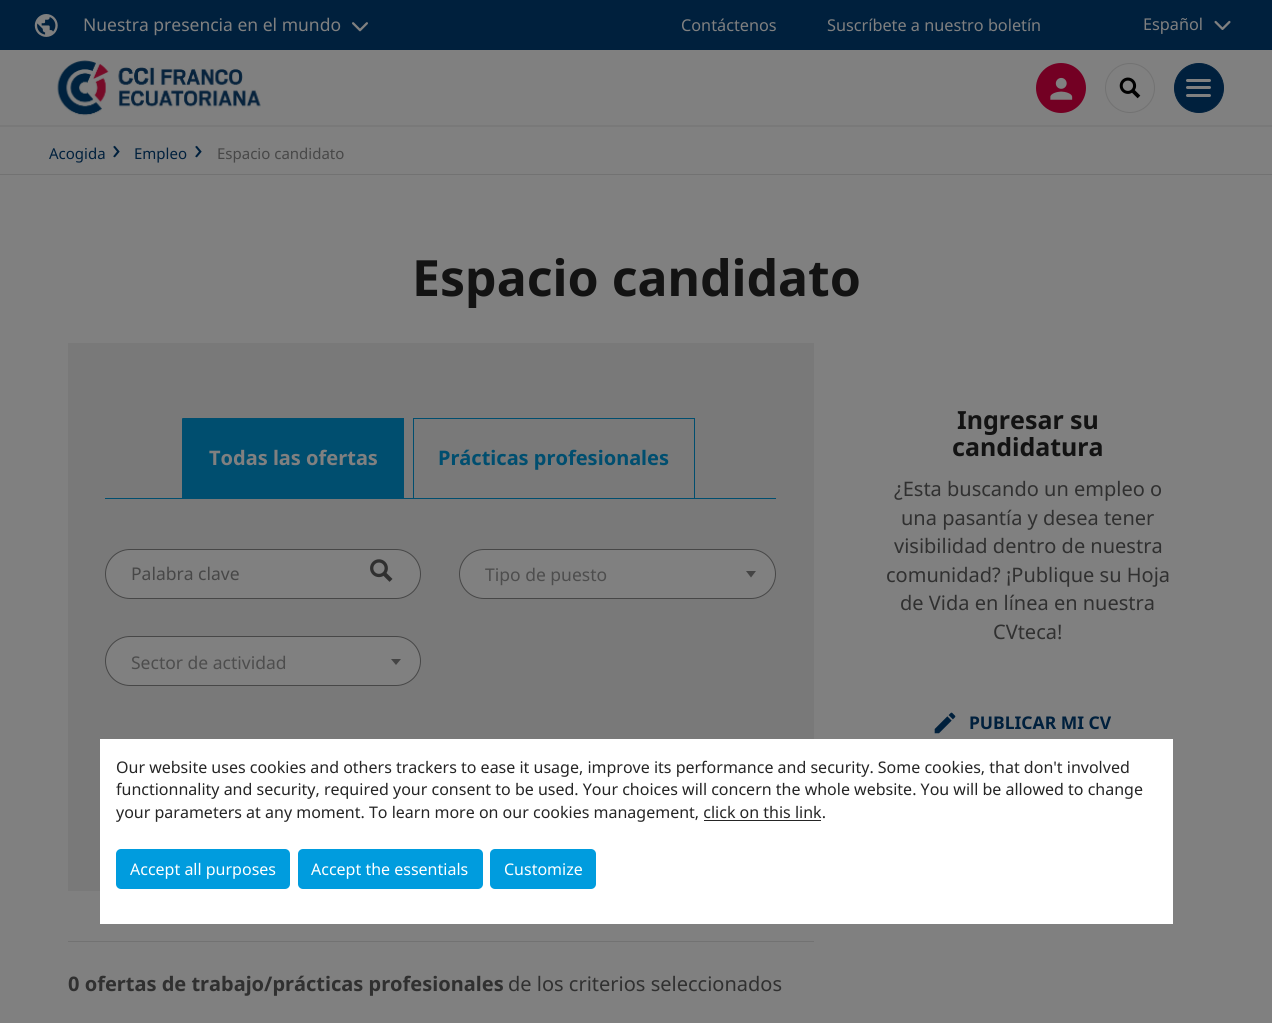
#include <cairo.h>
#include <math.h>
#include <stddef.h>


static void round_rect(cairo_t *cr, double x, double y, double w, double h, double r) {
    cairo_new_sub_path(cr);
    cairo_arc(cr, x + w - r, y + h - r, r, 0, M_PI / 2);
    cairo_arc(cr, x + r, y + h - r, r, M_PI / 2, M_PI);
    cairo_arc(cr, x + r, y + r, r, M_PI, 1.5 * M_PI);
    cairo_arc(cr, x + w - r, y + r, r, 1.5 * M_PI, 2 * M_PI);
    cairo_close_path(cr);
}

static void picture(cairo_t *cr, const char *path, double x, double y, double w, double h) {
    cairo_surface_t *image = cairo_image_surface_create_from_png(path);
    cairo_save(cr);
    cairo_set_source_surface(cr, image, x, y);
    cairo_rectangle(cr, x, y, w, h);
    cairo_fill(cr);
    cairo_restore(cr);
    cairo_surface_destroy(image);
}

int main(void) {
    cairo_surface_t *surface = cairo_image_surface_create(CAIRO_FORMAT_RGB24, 1272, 1023);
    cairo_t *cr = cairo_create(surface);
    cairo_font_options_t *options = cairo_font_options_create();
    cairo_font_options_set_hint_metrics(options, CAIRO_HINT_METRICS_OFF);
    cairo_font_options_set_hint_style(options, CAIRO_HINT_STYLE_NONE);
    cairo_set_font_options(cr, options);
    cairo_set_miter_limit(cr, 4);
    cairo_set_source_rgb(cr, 0.502, 0.502, 0.502);
    cairo_paint(cr);
    cairo_set_source_rgb(cr, 0.475, 0.475, 0.475);
    cairo_rectangle(cr, 0, 125, 1272, 2);
    cairo_fill(cr);
    cairo_set_source_rgb(cr, 0, 0.125, 0.239);
    cairo_rectangle(cr, 0, 0, 1272, 50);
    cairo_fill(cr);
    picture(cr, "img1.png", 34, 14, 24, 23);
    cairo_select_font_face(cr, "Noto Sans", CAIRO_FONT_SLANT_NORMAL, CAIRO_FONT_WEIGHT_NORMAL);
    cairo_set_font_size(cr, 17.5);
    cairo_set_source_rgb(cr, 0.502, 0.502, 0.502);
    cairo_move_to(cr, 83, 31);
    cairo_show_text(cr, "Nuestra presencia en el mundo");
    picture(cr, "img2.png", 352, 22, 16, 10);
    cairo_set_font_size(cr, 16.25);
    cairo_move_to(cr, 681, 31);
    cairo_show_text(cr, "Contáctenos");
    cairo_move_to(cr, 827, 31);
    cairo_show_text(cr, "Suscríbete a nuestro boletín");
    cairo_move_to(cr, 1143, 30);
    cairo_show_text(cr, "Español");
    picture(cr, "img3.png", 1214, 20, 17, 10);
    picture(cr, "img4.png", 57, 60, 204, 56);
    cairo_set_source_rgb(cr, 0.451, 0, 0.137);
    cairo_arc(cr, 1061, 88, 25, 0, 2 * M_PI);
    cairo_fill(cr);
    picture(cr, "img5.png", 1050, 77, 23, 23);
    cairo_arc(cr, 1130, 88, 24.5, 0, 2 * M_PI);
    cairo_set_source_rgb(cr, 0.447, 0.447, 0.447);
    cairo_set_line_width(cr, 1);
    cairo_stroke(cr);
    picture(cr, "img6.png", 1119, 77, 22, 22);
    cairo_set_source_rgb(cr, 0, 0.125, 0.239);
    cairo_arc(cr, 1199, 88, 24.5, 0, 2 * M_PI);
    cairo_fill_preserve(cr);
    cairo_stroke(cr);
    cairo_set_source_rgb(cr, 0.502, 0.502, 0.502);
    round_rect(cr, 1186, 79, 25, 3, 1.5);
    cairo_fill(cr);
    round_rect(cr, 1186, 86, 25, 3, 1.5);
    cairo_fill(cr);
    round_rect(cr, 1186, 94, 25, 3, 1.5);
    cairo_fill(cr);
    cairo_set_source_rgb(cr, 0.447, 0.447, 0.447);
    cairo_rectangle(cr, 0, 174, 1272, 1);
    cairo_fill(cr);
    cairo_set_font_size(cr, 15);
    cairo_set_source_rgb(cr, 0, 0.125, 0.239);
    cairo_move_to(cr, 49, 159);
    cairo_show_text(cr, "Acogida");
    cairo_set_font_size(cr, 28);
    cairo_move_to(cr, 112, 159);
    cairo_show_text(cr, "›");
    cairo_set_font_size(cr, 15);
    cairo_move_to(cr, 134, 159);
    cairo_show_text(cr, "Empleo");
    cairo_set_font_size(cr, 28);
    cairo_move_to(cr, 194, 159);
    cairo_show_text(cr, "›");
    cairo_set_font_size(cr, 15);
    cairo_set_source_rgb(cr, 0.278, 0.278, 0.278);
    cairo_move_to(cr, 217, 159);
    cairo_show_text(cr, "Espacio candidato");
    cairo_select_font_face(cr, "Noto Sans", CAIRO_FONT_SLANT_NORMAL, CAIRO_FONT_WEIGHT_BOLD);
    cairo_set_font_size(cr, 50);
    cairo_set_source_rgb(cr, 0.075, 0.075, 0.075);
    cairo_move_to(cr, 412, 296);
    cairo_show_text(cr, "Espacio candidato");
    cairo_set_source_rgb(cr, 0.475, 0.475, 0.475);
    cairo_rectangle(cr, 68, 343, 746, 548);
    cairo_fill(cr);
    cairo_set_source_rgb(cr, 0, 0.306, 0.435);
    cairo_rectangle(cr, 105, 498, 671, 1);
    cairo_fill(cr);
    cairo_rectangle(cr, 183, 418, 221, 80);
    cairo_fill(cr);
    cairo_new_path(cr);
    cairo_move_to(cr, 182, 499);
    cairo_line_to(cr, 182, 418);
    cairo_line_to(cr, 184, 419);
    cairo_line_to(cr, 184, 498);
    cairo_close_path(cr);
    cairo_fill(cr);
    cairo_set_font_size(cr, 20);
    cairo_set_source_rgb(cr, 0.502, 0.502, 0.502);
    cairo_move_to(cr, 209, 465);
    cairo_show_text(cr, "Todas las ofertas");
    cairo_rectangle(cr, 413.5, 418.5, 281, 80);
    cairo_set_source_rgb(cr, 0, 0.306, 0.435);
    cairo_stroke(cr);
    cairo_move_to(cr, 438, 465);
    cairo_show_text(cr, "Prácticas profesionales");
    cairo_set_source_rgb(cr, 0.502, 0.502, 0.502);
    round_rect(cr, 105.5, 549.5, 315, 49, 24.5);
    cairo_fill_preserve(cr);
    cairo_set_source_rgb(cr, 0.278, 0.278, 0.278);
    cairo_stroke(cr);
    cairo_select_font_face(cr, "Noto Sans", CAIRO_FONT_SLANT_NORMAL, CAIRO_FONT_WEIGHT_NORMAL);
    cairo_set_font_size(cr, 17.5);
    cairo_move_to(cr, 131, 580);
    cairo_show_text(cr, "Palabra clave");
    picture(cr, "img7.png", 370, 559, 23, 23);
    cairo_set_source_rgb(cr, 0.502, 0.502, 0.502);
    round_rect(cr, 459.5, 549.5, 316, 49, 24.5);
    cairo_fill_preserve(cr);
    cairo_set_source_rgb(cr, 0.278, 0.278, 0.278);
    cairo_stroke(cr);
    cairo_set_source_rgb(cr, 0.302, 0.302, 0.302);
    cairo_move_to(cr, 485, 581);
    cairo_show_text(cr, "Tipo de puesto");
    cairo_set_source_rgb(cr, 0.267, 0.267, 0.267);
    cairo_new_path(cr);
    cairo_move_to(cr, 746, 571);
    cairo_line_to(cr, 756, 571);
    cairo_line_to(cr, 751, 577.5);
    cairo_close_path(cr);
    cairo_fill(cr);
    cairo_set_source_rgb(cr, 0.502, 0.502, 0.502);
    round_rect(cr, 105.5, 636.5, 315, 49, 24.5);
    cairo_fill_preserve(cr);
    cairo_set_source_rgb(cr, 0.278, 0.278, 0.278);
    cairo_stroke(cr);
    cairo_set_source_rgb(cr, 0.302, 0.302, 0.302);
    cairo_move_to(cr, 131, 669);
    cairo_show_text(cr, "Sector de actividad");
    cairo_set_source_rgb(cr, 0.267, 0.267, 0.267);
    cairo_new_path(cr);
    cairo_move_to(cr, 391, 659);
    cairo_line_to(cr, 401, 659);
    cairo_line_to(cr, 396, 665);
    cairo_close_path(cr);
    cairo_fill(cr);
    cairo_set_source_rgb(cr, 0.447, 0.447, 0.447);
    cairo_rectangle(cr, 68, 941, 746, 1);
    cairo_fill(cr);
    cairo_select_font_face(cr, "Noto Sans", CAIRO_FONT_SLANT_NORMAL, CAIRO_FONT_WEIGHT_BOLD);
    cairo_set_font_size(cr, 20);
    cairo_set_source_rgb(cr, 0.188, 0.188, 0.188);
    cairo_move_to(cr, 68, 991);
    cairo_show_text(cr, "0 ofertas de trabajo/prácticas profesionales");
    cairo_select_font_face(cr, "Noto Sans", CAIRO_FONT_SLANT_NORMAL, CAIRO_FONT_WEIGHT_NORMAL);
    cairo_move_to(cr, 508, 991);
    cairo_show_text(cr, "de los criterios seleccionados");
    cairo_select_font_face(cr, "Noto Sans", CAIRO_FONT_SLANT_NORMAL, CAIRO_FONT_WEIGHT_BOLD);
    cairo_set_font_size(cr, 25);
    cairo_set_source_rgb(cr, 0.075, 0.075, 0.075);
    cairo_move_to(cr, 957, 429);
    cairo_show_text(cr, "Ingresar su");
    cairo_move_to(cr, 952, 456);
    cairo_show_text(cr, "candidatura");
    cairo_select_font_face(cr, "Noto Sans", CAIRO_FONT_SLANT_NORMAL, CAIRO_FONT_WEIGHT_NORMAL);
    cairo_set_font_size(cr, 20);
    cairo_set_source_rgb(cr, 0.188, 0.188, 0.188);
    cairo_move_to(cr, 894, 496);
    cairo_show_text(cr, "¿Esta buscando un empleo o");
    cairo_move_to(cr, 901, 525);
    cairo_show_text(cr, "una pasantía y desea tener");
    cairo_move_to(cr, 894, 553);
    cairo_show_text(cr, "visibilidad dentro de nuestra");
    cairo_move_to(cr, 886, 582);
    cairo_show_text(cr, "comunidad? ¡Publique su Hoja");
    cairo_move_to(cr, 900, 610);
    cairo_show_text(cr, "de Vida en línea en nuestra");
    cairo_move_to(cr, 993, 639);
    cairo_show_text(cr, "CVteca!");
    picture(cr, "img8.png", 934, 712, 22, 22);
    cairo_select_font_face(cr, "Noto Sans", CAIRO_FONT_SLANT_NORMAL, CAIRO_FONT_WEIGHT_BOLD);
    cairo_set_font_size(cr, 17.5);
    cairo_set_source_rgb(cr, 0, 0.125, 0.239);
    cairo_move_to(cr, 969, 729);
    cairo_show_text(cr, "PUBLICAR MI CV");
    cairo_set_source_rgb(cr, 1, 1, 1);
    cairo_rectangle(cr, 100, 739, 1073, 185);
    cairo_fill(cr);
    cairo_select_font_face(cr, "Noto Sans", CAIRO_FONT_SLANT_NORMAL, CAIRO_FONT_WEIGHT_NORMAL);
    cairo_set_font_size(cr, 16);
    cairo_set_source_rgb(cr, 0.145, 0.145, 0.145);
    cairo_move_to(cr, 116, 773);
    cairo_show_text(cr, "Our website uses cookies and others trackers to ease it usage, improve its performance and security. Some cookies, that don't involved");
    cairo_move_to(cr, 116, 795);
    cairo_show_text(cr, "functionnality and security, required your consent to be used. Your choices will concern the whole website. You will be allowed to change");
    cairo_move_to(cr, 116, 818);
    cairo_show_text(cr, "your parameters at any moment. To learn more on our cookies management, click on this link.");
    cairo_rectangle(cr, 704, 820, 117, 1);
    cairo_fill(cr);
    cairo_set_source_rgb(cr, 0, 0.612, 0.871);
    round_rect(cr, 116, 849, 174, 40, 5);
    cairo_fill(cr);
    cairo_set_source_rgb(cr, 1, 1, 1);
    cairo_move_to(cr, 130, 875);
    cairo_show_text(cr, "Accept all purposes");
    cairo_set_source_rgb(cr, 0, 0.612, 0.871);
    round_rect(cr, 298, 849, 185, 40, 5);
    cairo_fill(cr);
    cairo_set_source_rgb(cr, 1, 1, 1);
    cairo_move_to(cr, 311, 875);
    cairo_show_text(cr, "Accept the essentials");
    cairo_set_source_rgb(cr, 0, 0.612, 0.871);
    round_rect(cr, 490, 849, 106, 40, 5);
    cairo_fill(cr);
    cairo_set_source_rgb(cr, 1, 1, 1);
    cairo_move_to(cr, 504, 875);
    cairo_show_text(cr, "Customize");
    cairo_surface_write_to_png(surface, "page.png");
    cairo_font_options_destroy(options);
    cairo_destroy(cr);
    cairo_surface_destroy(surface);
    return 0;
}
